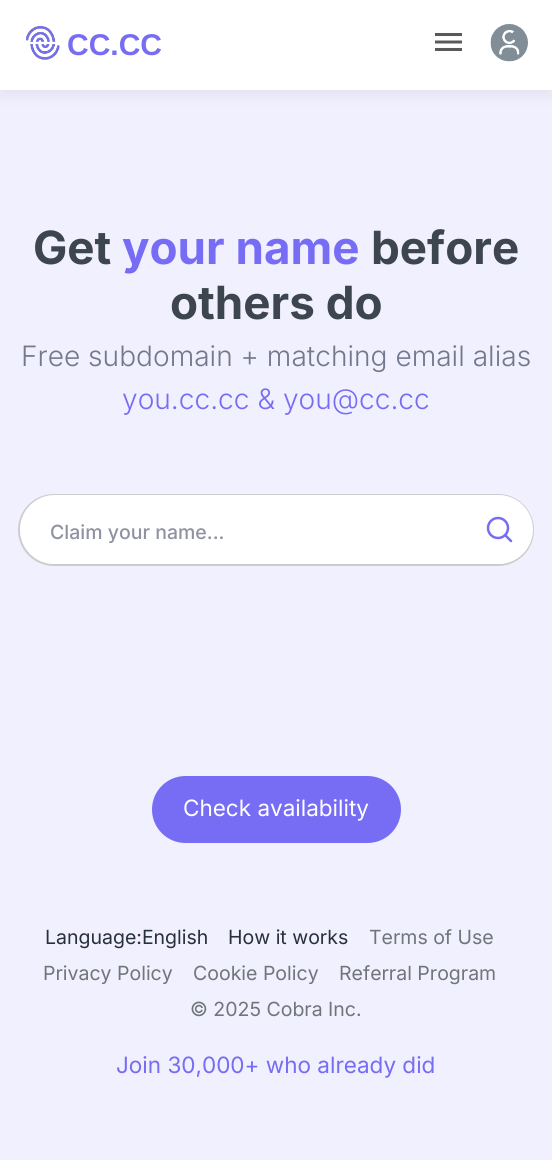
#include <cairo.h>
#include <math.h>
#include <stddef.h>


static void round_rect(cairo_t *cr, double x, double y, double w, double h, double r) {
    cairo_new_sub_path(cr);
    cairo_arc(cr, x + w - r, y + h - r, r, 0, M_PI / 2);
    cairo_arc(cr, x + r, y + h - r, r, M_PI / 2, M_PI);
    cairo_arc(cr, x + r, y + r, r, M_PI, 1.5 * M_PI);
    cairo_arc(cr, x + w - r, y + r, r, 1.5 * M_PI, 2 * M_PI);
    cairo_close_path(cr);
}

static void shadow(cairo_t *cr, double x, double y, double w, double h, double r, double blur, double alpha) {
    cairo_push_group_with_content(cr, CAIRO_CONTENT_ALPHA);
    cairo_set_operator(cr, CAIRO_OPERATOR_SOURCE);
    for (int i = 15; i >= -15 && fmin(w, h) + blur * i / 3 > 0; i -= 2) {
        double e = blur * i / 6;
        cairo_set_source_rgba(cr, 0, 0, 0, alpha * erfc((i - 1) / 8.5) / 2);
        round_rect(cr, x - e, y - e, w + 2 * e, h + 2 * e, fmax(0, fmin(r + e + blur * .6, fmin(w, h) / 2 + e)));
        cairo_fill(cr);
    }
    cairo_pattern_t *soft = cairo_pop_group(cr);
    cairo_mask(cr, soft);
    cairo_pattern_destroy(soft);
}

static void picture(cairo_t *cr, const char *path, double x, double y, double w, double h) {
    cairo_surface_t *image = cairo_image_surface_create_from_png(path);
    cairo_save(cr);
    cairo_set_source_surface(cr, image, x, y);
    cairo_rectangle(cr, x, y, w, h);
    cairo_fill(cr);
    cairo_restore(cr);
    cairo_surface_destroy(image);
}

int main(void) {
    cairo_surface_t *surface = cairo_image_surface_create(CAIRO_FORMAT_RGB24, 552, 1160);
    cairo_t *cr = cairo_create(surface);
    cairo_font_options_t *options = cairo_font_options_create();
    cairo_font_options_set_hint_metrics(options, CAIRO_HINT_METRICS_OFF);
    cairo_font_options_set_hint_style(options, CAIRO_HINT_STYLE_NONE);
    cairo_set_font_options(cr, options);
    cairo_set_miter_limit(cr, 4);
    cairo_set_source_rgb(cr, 0.945, 0.941, 0.996);
    cairo_paint(cr);
    cairo_set_source_rgb(cr, 0.157, 0.188, 0.224);
    shadow(cr, 0, 5, 552, 90, 0, 7.5, 0.08);
    cairo_set_source_rgb(cr, 1, 1, 1);
    cairo_rectangle(cr, 0, 0, 552, 90);
    cairo_fill(cr);
    picture(cr, "img1.png", 26, 26, 34, 34);
    cairo_select_font_face(cr, "Liberation Sans", CAIRO_FONT_SLANT_NORMAL, CAIRO_FONT_WEIGHT_BOLD);
    cairo_set_font_size(cr, 30);
    cairo_set_source_rgb(cr, 0.463, 0.427, 0.957);
    cairo_move_to(cr, 67, 55);
    cairo_show_text(cr, "CC.CC");
    picture(cr, "img2.png", 435, 33, 27, 18);
    picture(cr, "img3.png", 490, 24, 38, 38);
    cairo_select_font_face(cr, "Inter", CAIRO_FONT_SLANT_NORMAL, CAIRO_FONT_WEIGHT_BOLD);
    cairo_set_font_size(cr, 45.75);
    cairo_set_source_rgb(cr, 0.239, 0.271, 0.306);
    cairo_move_to(cr, 33, 264);
    cairo_show_text(cr, "Get");
    cairo_set_source_rgb(cr, 0.463, 0.427, 0.957);
    cairo_move_to(cr, 122, 264);
    cairo_show_text(cr, "your name");
    cairo_set_source_rgb(cr, 0.239, 0.271, 0.306);
    cairo_move_to(cr, 371, 264);
    cairo_show_text(cr, "before");
    cairo_move_to(cr, 170, 319);
    cairo_show_text(cr, "others do");
    cairo_select_font_face(cr, "Inter Light", CAIRO_FONT_SLANT_NORMAL, CAIRO_FONT_WEIGHT_NORMAL);
    cairo_set_font_size(cr, 28.1);
    cairo_set_source_rgb(cr, 0.455, 0.471, 0.553);
    cairo_move_to(cr, 21, 366);
    cairo_show_text(cr, "Free subdomain + matching email alias");
    cairo_set_source_rgb(cr, 0.463, 0.427, 0.957);
    cairo_move_to(cr, 122, 409);
    cairo_show_text(cr, "you.cc.cc & you@cc.cc");
    round_rect(cr, 19, 495, 514, 70, 35);
    cairo_set_source_rgb(cr, 0.8, 0.8, 0.8);
    cairo_stroke(cr);
    cairo_set_source_rgb(cr, 1, 1, 1);
    cairo_new_path(cr);
    cairo_move_to(cr, 467, 495);
    cairo_line_to(cr, 498.5, 495);
    cairo_curve_to(cr, 517.5, 495, 533, 510.5, 533, 529.5);
    cairo_curve_to(cr, 533, 548.5, 517.5, 564, 498.5, 564);
    cairo_line_to(cr, 467, 564);
    cairo_close_path(cr);
    cairo_fill(cr);
    cairo_new_path(cr);
    cairo_move_to(cr, 54.5, 495);
    cairo_line_to(cr, 468, 495);
    cairo_line_to(cr, 468, 564);
    cairo_line_to(cr, 54.5, 564);
    cairo_curve_to(cr, 35.5, 564, 20, 548.5, 20, 529.5);
    cairo_curve_to(cr, 20, 510.5, 35.5, 495, 54.5, 495);
    cairo_close_path(cr);
    cairo_fill(cr);
    cairo_select_font_face(cr, "Inter Medium", CAIRO_FONT_SLANT_NORMAL, CAIRO_FONT_WEIGHT_NORMAL);
    cairo_set_font_size(cr, 19.5);
    cairo_set_source_rgb(cr, 0.561, 0.573, 0.631);
    cairo_move_to(cr, 50, 539);
    cairo_show_text(cr, "Claim your name...");
    cairo_new_path(cr);
    cairo_arc(cr, 498, 528, 10, 0, 2 * M_PI);
    cairo_set_source_rgb(cr, 0.463, 0.427, 0.957);
    cairo_set_line_width(cr, 2.5);
    cairo_stroke(cr);
    cairo_new_path(cr);
    cairo_move_to(cr, 511, 541);
    cairo_line_to(cr, 505.5, 535.5);
    cairo_set_line_cap(cr, CAIRO_LINE_CAP_ROUND);
    cairo_set_line_join(cr, CAIRO_LINE_JOIN_ROUND);
    cairo_stroke(cr);
    round_rect(cr, 153, 777, 247, 65, 32.5);
    cairo_fill_preserve(cr);
    cairo_set_line_width(cr, 2);
    cairo_set_line_cap(cr, CAIRO_LINE_CAP_BUTT);
    cairo_set_line_join(cr, CAIRO_LINE_JOIN_MITER);
    cairo_stroke(cr);
    cairo_select_font_face(cr, "Inter", CAIRO_FONT_SLANT_NORMAL, CAIRO_FONT_WEIGHT_NORMAL);
    cairo_set_font_size(cr, 22.5);
    cairo_set_source_rgb(cr, 1, 1, 1);
    cairo_move_to(cr, 183, 816);
    cairo_show_text(cr, "Check availability");
    cairo_set_font_size(cr, 19.5);
    cairo_set_source_rgb(cr, 0.157, 0.188, 0.224);
    cairo_move_to(cr, 45, 944);
    cairo_show_text(cr, "Language:English");
    cairo_move_to(cr, 228, 944);
    cairo_show_text(cr, "How it works");
    cairo_set_source_rgb(cr, 0.439, 0.459, 0.478);
    cairo_move_to(cr, 369, 944);
    cairo_show_text(cr, "Terms of Use");
    cairo_move_to(cr, 43, 980);
    cairo_show_text(cr, "Privacy Policy");
    cairo_move_to(cr, 193, 980);
    cairo_show_text(cr, "Cookie Policy");
    cairo_move_to(cr, 339, 980);
    cairo_show_text(cr, "Referral Program");
    cairo_move_to(cr, 190, 1016);
    cairo_show_text(cr, "© 2025 Cobra Inc.");
    cairo_set_font_size(cr, 22.5);
    cairo_set_source_rgb(cr, 0.463, 0.427, 0.957);
    cairo_move_to(cr, 116, 1073);
    cairo_show_text(cr, "Join 30,000+ who already did");
    cairo_surface_write_to_png(surface, "page.png");
    cairo_font_options_destroy(options);
    cairo_destroy(cr);
    cairo_surface_destroy(surface);
    return 0;
}
